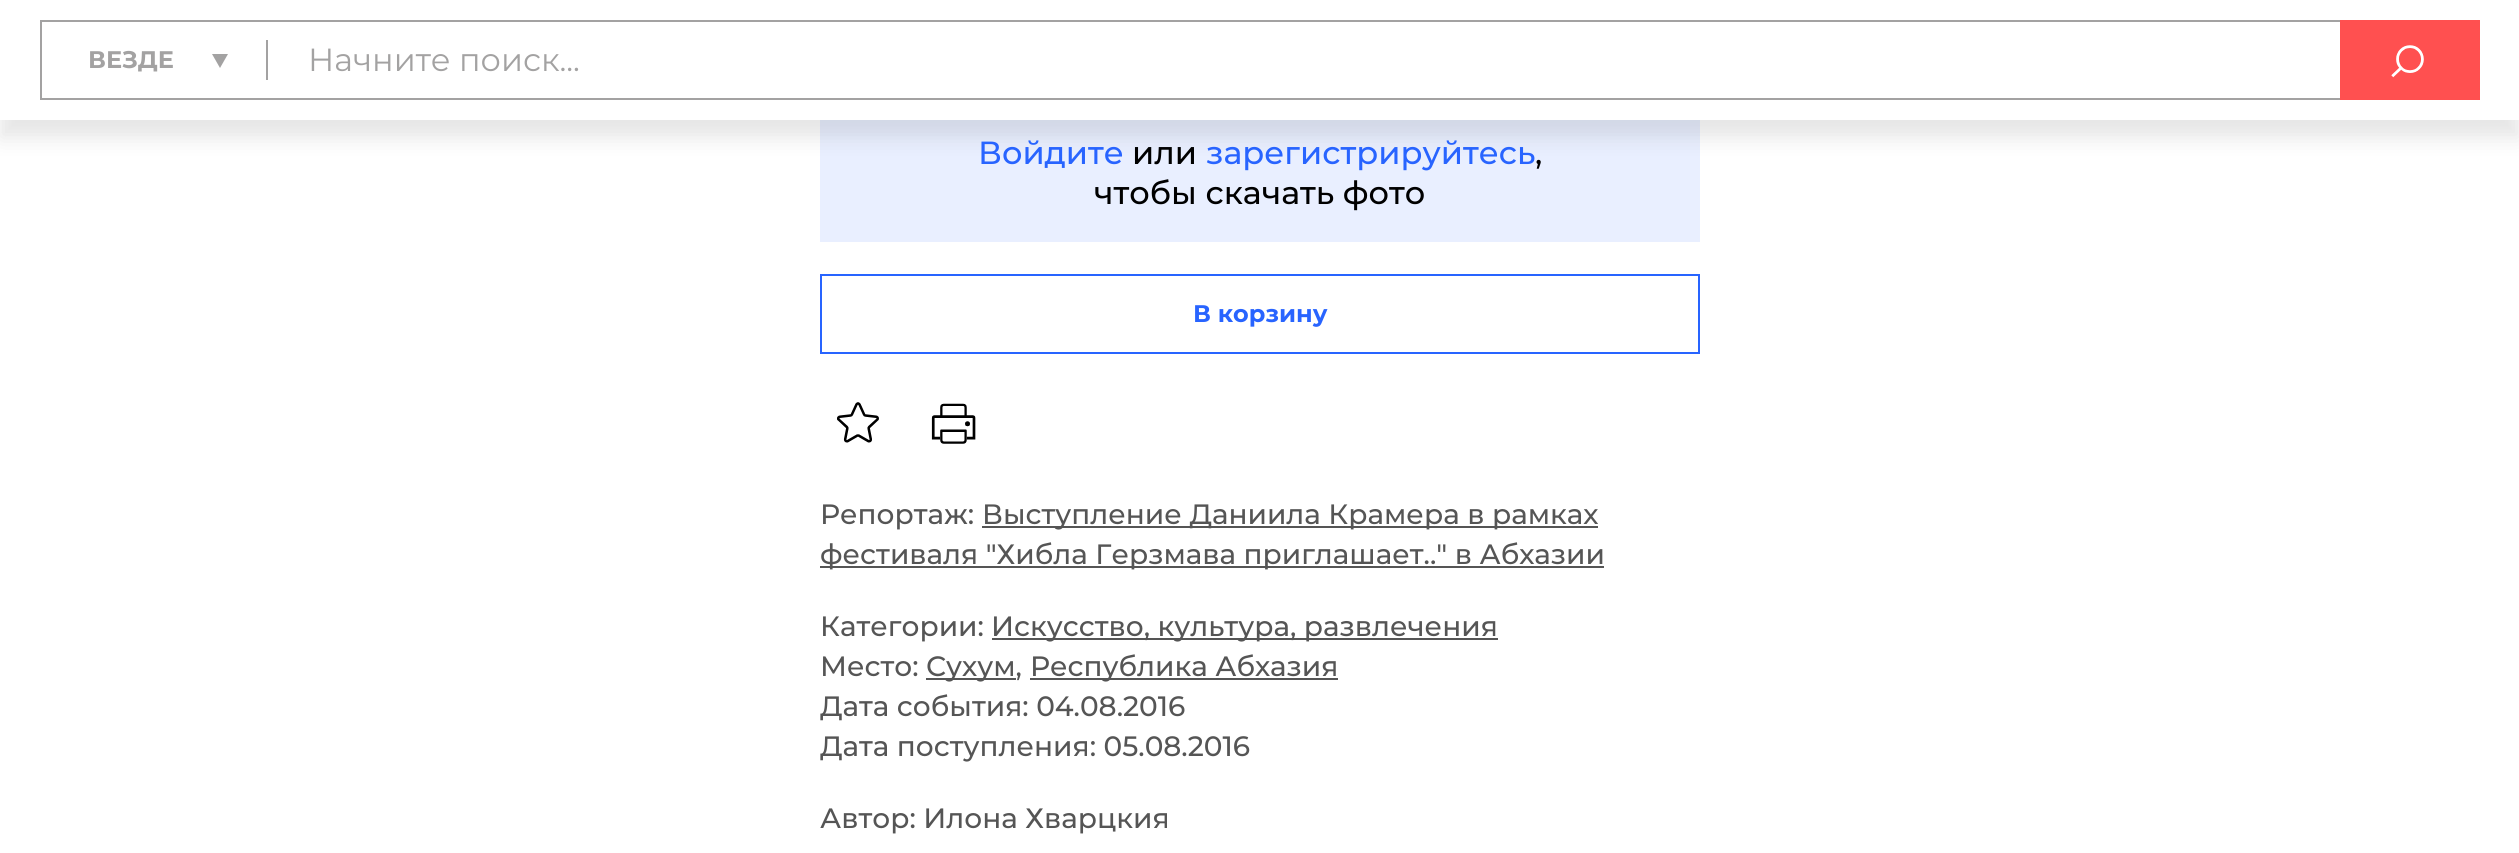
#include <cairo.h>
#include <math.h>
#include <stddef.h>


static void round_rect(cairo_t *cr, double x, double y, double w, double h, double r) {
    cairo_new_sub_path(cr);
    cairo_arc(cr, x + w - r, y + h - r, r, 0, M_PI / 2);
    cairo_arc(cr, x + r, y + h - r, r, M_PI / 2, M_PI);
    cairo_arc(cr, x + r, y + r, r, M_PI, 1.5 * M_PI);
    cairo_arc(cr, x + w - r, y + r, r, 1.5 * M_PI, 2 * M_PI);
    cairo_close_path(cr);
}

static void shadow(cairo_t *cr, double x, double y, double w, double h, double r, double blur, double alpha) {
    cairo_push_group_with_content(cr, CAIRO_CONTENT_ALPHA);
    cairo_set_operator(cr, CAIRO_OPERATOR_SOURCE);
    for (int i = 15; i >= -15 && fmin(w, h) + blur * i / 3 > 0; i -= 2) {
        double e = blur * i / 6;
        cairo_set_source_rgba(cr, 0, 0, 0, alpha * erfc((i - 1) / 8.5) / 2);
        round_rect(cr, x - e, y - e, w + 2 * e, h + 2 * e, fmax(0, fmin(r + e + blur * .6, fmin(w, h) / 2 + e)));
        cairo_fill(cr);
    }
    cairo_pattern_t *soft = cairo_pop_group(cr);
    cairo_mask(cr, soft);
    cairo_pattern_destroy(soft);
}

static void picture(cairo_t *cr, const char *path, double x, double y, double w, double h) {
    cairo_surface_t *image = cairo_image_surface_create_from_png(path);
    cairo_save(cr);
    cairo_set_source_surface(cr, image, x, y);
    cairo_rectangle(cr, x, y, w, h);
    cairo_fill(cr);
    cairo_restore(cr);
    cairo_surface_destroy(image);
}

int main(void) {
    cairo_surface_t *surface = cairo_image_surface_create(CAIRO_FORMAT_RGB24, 2519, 853);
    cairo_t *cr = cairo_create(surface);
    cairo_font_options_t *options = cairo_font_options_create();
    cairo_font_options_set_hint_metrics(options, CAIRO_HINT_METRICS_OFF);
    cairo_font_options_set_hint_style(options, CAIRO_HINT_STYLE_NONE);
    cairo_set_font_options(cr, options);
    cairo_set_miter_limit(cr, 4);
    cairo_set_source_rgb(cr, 1, 1, 1);
    cairo_paint(cr);
    cairo_set_source_rgb(cr, 0.914, 0.937, 1);
    cairo_rectangle(cr, 820, 120, 880, 122);
    cairo_fill(cr);
    cairo_set_source_rgb(cr, 0, 0, 0);
    shadow(cr, 0, -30, 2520, 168, 0, 10, 0.1);
    cairo_set_source_rgb(cr, 1, 1, 1);
    cairo_rectangle(cr, 0, 0, 2519, 120);
    cairo_fill(cr);
    cairo_set_source_rgb(cr, 0.639, 0.635, 0.635);
    cairo_rectangle(cr, 40, 20, 2300, 2);
    cairo_fill(cr);
    cairo_rectangle(cr, 40, 98, 2300, 2);
    cairo_fill(cr);
    cairo_rectangle(cr, 40, 20, 2, 80);
    cairo_fill(cr);
    cairo_select_font_face(cr, "Montserrat", CAIRO_FONT_SLANT_NORMAL, CAIRO_FONT_WEIGHT_BOLD);
    cairo_set_font_size(cr, 24);
    cairo_move_to(cr, 88, 68);
    cairo_show_text(cr, "ВЕЗДЕ");
    cairo_new_path(cr);
    cairo_move_to(cr, 212, 54);
    cairo_line_to(cr, 228, 54);
    cairo_line_to(cr, 220, 68);
    cairo_close_path(cr);
    cairo_fill(cr);
    cairo_rectangle(cr, 266, 40, 2, 40);
    cairo_fill(cr);
    cairo_select_font_face(cr, "Montserrat", CAIRO_FONT_SLANT_NORMAL, CAIRO_FONT_WEIGHT_NORMAL);
    cairo_set_font_size(cr, 32);
    cairo_move_to(cr, 308, 71);
    cairo_show_text(cr, "Начните поиск...");
    cairo_set_source_rgb(cr, 1, 0.314, 0.314);
    cairo_rectangle(cr, 2340, 20, 140, 80);
    cairo_fill(cr);
    picture(cr, "img1.png", 2391, 45, 33, 33);
    cairo_select_font_face(cr, "Montserrat Medium", CAIRO_FONT_SLANT_NORMAL, CAIRO_FONT_WEIGHT_NORMAL);
    cairo_set_source_rgb(cr, 0.157, 0.392, 1);
    cairo_move_to(cr, 978, 164);
    cairo_show_text(cr, "Войдите");
    cairo_set_source_rgb(cr, 0, 0, 0);
    cairo_move_to(cr, 1132, 164);
    cairo_show_text(cr, "или");
    cairo_set_source_rgb(cr, 0.157, 0.392, 1);
    cairo_move_to(cr, 1206, 164);
    cairo_show_text(cr, "зарегистрируйтесь");
    cairo_set_source_rgb(cr, 0, 0, 0);
    cairo_move_to(cr, 1535, 164);
    cairo_show_text(cr, ",");
    cairo_move_to(cr, 1094, 204);
    cairo_show_text(cr, "чтобы скачать фото");
    cairo_rectangle(cr, 821, 275, 878, 78);
    cairo_set_source_rgb(cr, 0.157, 0.392, 1);
    cairo_stroke(cr);
    cairo_select_font_face(cr, "Montserrat", CAIRO_FONT_SLANT_NORMAL, CAIRO_FONT_WEIGHT_BOLD);
    cairo_set_font_size(cr, 24);
    cairo_move_to(cr, 1193, 322);
    cairo_show_text(cr, "В корзину");
    picture(cr, "img2.png", 837, 402, 42, 41);
    picture(cr, "img3.png", 931, 403, 45, 41);
    cairo_select_font_face(cr, "Montserrat Medium", CAIRO_FONT_SLANT_NORMAL, CAIRO_FONT_WEIGHT_NORMAL);
    cairo_set_font_size(cr, 28);
    cairo_set_source_rgb(cr, 0.333, 0.333, 0.333);
    cairo_move_to(cr, 820, 524);
    cairo_show_text(cr, "Репортаж:");
    cairo_rectangle(cr, 982, 526, 616, 2);
    cairo_fill(cr);
    cairo_move_to(cr, 982, 524);
    cairo_show_text(cr, "Выступление Даниила Крамера в рамках");
    cairo_rectangle(cr, 820, 566, 784, 2);
    cairo_fill(cr);
    cairo_move_to(cr, 820, 564);
    cairo_show_text(cr, "фестиваля \"Хибла Герзмава приглашает..\" в Абхазии");
    cairo_move_to(cr, 820, 636);
    cairo_show_text(cr, "Категории:");
    cairo_rectangle(cr, 992, 638, 506, 2);
    cairo_fill(cr);
    cairo_move_to(cr, 991, 636);
    cairo_show_text(cr, "Искусство, культура, развлечения");
    cairo_move_to(cr, 820, 676);
    cairo_show_text(cr, "Место:");
    cairo_rectangle(cr, 926, 678, 90, 2);
    cairo_fill(cr);
    cairo_move_to(cr, 926, 676);
    cairo_show_text(cr, "Сухум,");
    cairo_rectangle(cr, 1030, 678, 308, 2);
    cairo_fill(cr);
    cairo_move_to(cr, 1030, 676);
    cairo_show_text(cr, "Республика Абхазия");
    cairo_move_to(cr, 820, 716);
    cairo_show_text(cr, "Дата события: 04.08.2016");
    cairo_move_to(cr, 820, 756);
    cairo_show_text(cr, "Дата поступления: 05.08.2016");
    cairo_move_to(cr, 820, 828);
    cairo_show_text(cr, "Автор: Илона Хварцкия");
    cairo_surface_write_to_png(surface, "page.png");
    cairo_font_options_destroy(options);
    cairo_destroy(cr);
    cairo_surface_destroy(surface);
    return 0;
}
